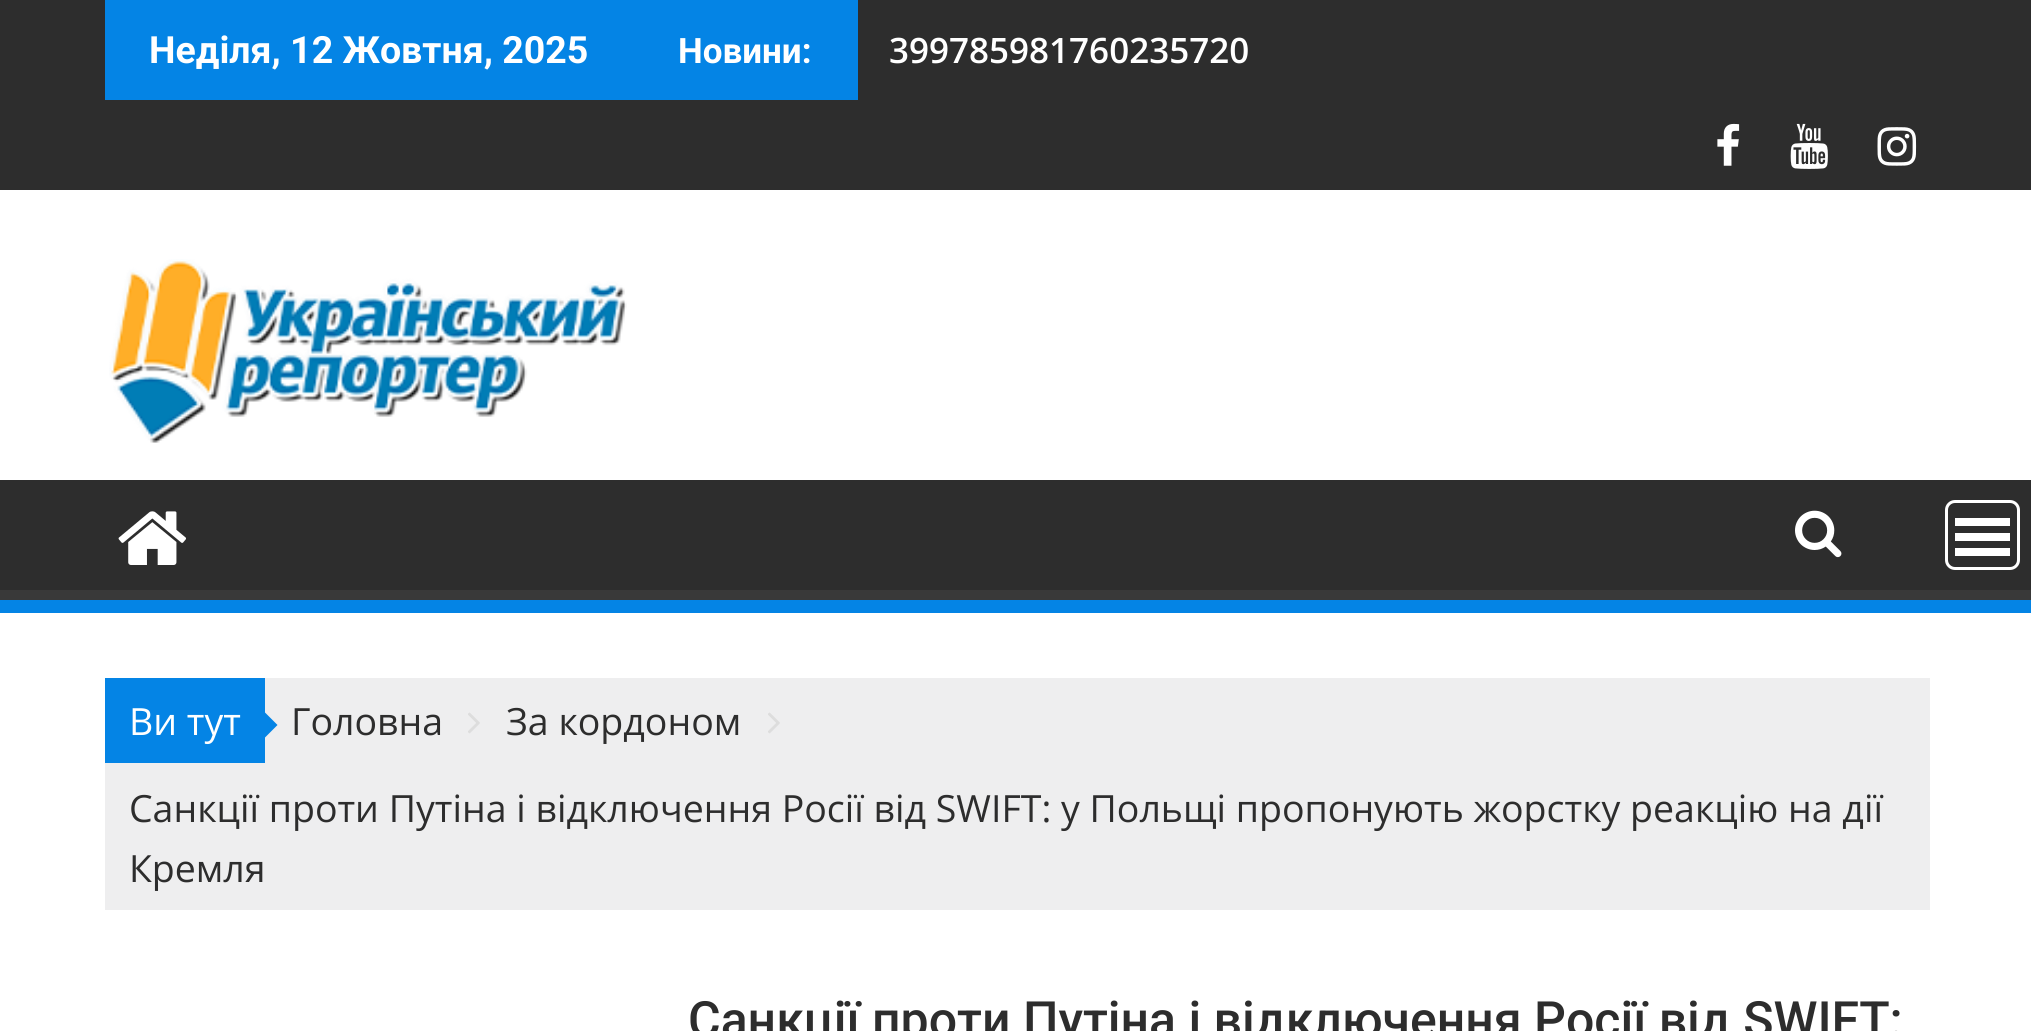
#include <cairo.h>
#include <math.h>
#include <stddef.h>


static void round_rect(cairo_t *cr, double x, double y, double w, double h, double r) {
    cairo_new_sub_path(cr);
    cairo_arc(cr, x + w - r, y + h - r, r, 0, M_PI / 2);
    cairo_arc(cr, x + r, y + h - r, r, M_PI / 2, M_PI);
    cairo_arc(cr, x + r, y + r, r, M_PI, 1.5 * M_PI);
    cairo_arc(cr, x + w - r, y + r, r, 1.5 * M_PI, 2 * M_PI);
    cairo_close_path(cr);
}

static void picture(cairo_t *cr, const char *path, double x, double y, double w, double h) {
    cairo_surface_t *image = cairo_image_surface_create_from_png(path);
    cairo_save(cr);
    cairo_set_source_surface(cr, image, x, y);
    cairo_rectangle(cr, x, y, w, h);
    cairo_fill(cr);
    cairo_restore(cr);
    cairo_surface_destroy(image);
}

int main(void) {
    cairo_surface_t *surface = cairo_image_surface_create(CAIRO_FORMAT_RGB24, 2031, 1031);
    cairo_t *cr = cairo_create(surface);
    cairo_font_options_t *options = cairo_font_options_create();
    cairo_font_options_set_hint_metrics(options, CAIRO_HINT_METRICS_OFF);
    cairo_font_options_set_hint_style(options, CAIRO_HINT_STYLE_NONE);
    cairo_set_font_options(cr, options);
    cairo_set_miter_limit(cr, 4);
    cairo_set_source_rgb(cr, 1, 1, 1);
    cairo_paint(cr);
    cairo_set_source_rgb(cr, 0.176, 0.176, 0.176);
    cairo_rectangle(cr, 0, 0, 2031, 190);
    cairo_fill(cr);
    cairo_set_source_rgb(cr, 0.016, 0.518, 0.898);
    cairo_rectangle(cr, 105, 0, 753, 100);
    cairo_fill(cr);
    cairo_select_font_face(cr, "Roboto", CAIRO_FONT_SLANT_NORMAL, CAIRO_FONT_WEIGHT_BOLD);
    cairo_set_font_size(cr, 37.5);
    cairo_set_source_rgb(cr, 1, 1, 1);
    cairo_move_to(cr, 149, 63);
    cairo_show_text(cr, "Неділя, 12 Жовтня, 2025");
    cairo_set_font_size(cr, 35);
    cairo_move_to(cr, 678, 63);
    cairo_show_text(cr, "Новини:");
    cairo_select_font_face(cr, "Open Sans SemiBold", CAIRO_FONT_SLANT_NORMAL, CAIRO_FONT_WEIGHT_NORMAL);
    cairo_move_to(cr, 889, 63);
    cairo_show_text(cr, "399785981760235720");
    picture(cr, "img1.png", 1717, 123, 23, 43);
    picture(cr, "img2.png", 1790, 123, 38, 46);
    picture(cr, "img3.png", 1877, 127, 40, 39);
    picture(cr, "img4.png", 109, 259, 518, 184);
    cairo_set_source_rgb(cr, 0.176, 0.176, 0.176);
    cairo_rectangle(cr, 0, 480, 2031, 110);
    cairo_fill(cr);
    cairo_save(cr);
    cairo_rectangle(cr, 0, 480, 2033, 120);
    cairo_clip(cr);
    cairo_set_source_rgb(cr, 0.224, 0.224, 0.224);
    cairo_set_fill_rule(cr, CAIRO_FILL_RULE_EVEN_ODD);
    cairo_new_path(cr);
    cairo_move_to(cr, -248, 232);
    cairo_line_to(cr, 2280, 232);
    cairo_line_to(cr, 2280, 848);
    cairo_line_to(cr, -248, 848);
    cairo_close_path(cr);
    cairo_move_to(cr, -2, 465);
    cairo_line_to(cr, 2030, 465);
    cairo_curve_to(cr, 2031, 465, 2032, 466, 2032, 468);
    cairo_line_to(cr, 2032, 588);
    cairo_curve_to(cr, 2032, 589, 2031, 590, 2030, 590);
    cairo_line_to(cr, -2, 590);
    cairo_curve_to(cr, -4, 590, -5, 589, -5, 588);
    cairo_line_to(cr, -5, 468);
    cairo_curve_to(cr, -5, 466, -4, 465, -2, 465);
    cairo_close_path(cr);
    cairo_fill(cr);
    cairo_restore(cr);
    cairo_set_source_rgb(cr, 0.016, 0.518, 0.898);
    cairo_rectangle(cr, 0, 600, 2031, 13);
    cairo_fill(cr);
    picture(cr, "img5.png", 118, 511, 68, 54);
    picture(cr, "img6.png", 1795, 510, 47, 48);
    round_rect(cr, 1946.5, 501.5, 72, 67, 8.5);
    cairo_set_source_rgb(cr, 1, 1, 1);
    cairo_set_line_width(cr, 3);
    cairo_stroke(cr);
    cairo_rectangle(cr, 1955, 548, 55, 8);
    cairo_fill(cr);
    cairo_rectangle(cr, 1955, 533, 55, 8);
    cairo_fill(cr);
    cairo_rectangle(cr, 1955, 518, 55, 8);
    cairo_fill(cr);
    cairo_set_source_rgb(cr, 0.933, 0.933, 0.937);
    cairo_rectangle(cr, 105, 678, 1825, 232);
    cairo_fill(cr);
    cairo_select_font_face(cr, "Open Sans", CAIRO_FONT_SLANT_NORMAL, CAIRO_FONT_WEIGHT_NORMAL);
    cairo_set_font_size(cr, 37.5);
    cairo_set_source_rgb(cr, 0.176, 0.176, 0.176);
    cairo_move_to(cr, 291, 735);
    cairo_show_text(cr, "Головна");
    picture(cr, "img7.png", 468, 712, 12, 22);
    cairo_move_to(cr, 506, 735);
    cairo_show_text(cr, "За кордоном");
    picture(cr, "img7.png", 768, 712, 12, 22);
    cairo_move_to(cr, 129, 822);
    cairo_show_text(cr, "Санкції проти Путіна і відключення Росії від SWIFT: у Польщі пропонують жорстку реакцію на дії");
    cairo_move_to(cr, 129, 882);
    cairo_show_text(cr, "Кремля");
    cairo_set_source_rgb(cr, 0.016, 0.518, 0.898);
    cairo_rectangle(cr, 105, 678, 160, 85);
    cairo_fill(cr);
    cairo_set_source_rgb(cr, 1, 1, 1);
    cairo_move_to(cr, 129, 735);
    cairo_show_text(cr, "Ви тут");
    cairo_set_source_rgb(cr, 0.016, 0.518, 0.898);
    cairo_new_path(cr);
    cairo_move_to(cr, 265, 737.5);
    cairo_line_to(cr, 265, 712.5);
    cairo_line_to(cr, 277.5, 725);
    cairo_close_path(cr);
    cairo_fill(cr);
    cairo_select_font_face(cr, "Roboto Medium", CAIRO_FONT_SLANT_NORMAL, CAIRO_FONT_WEIGHT_NORMAL);
    cairo_set_font_size(cr, 50);
    cairo_set_source_rgb(cr, 0.176, 0.176, 0.176);
    cairo_move_to(cr, 688, 1037);
    cairo_show_text(cr, "Санкції проти Путіна і відключення Росії від SWIFT:");
    cairo_surface_write_to_png(surface, "page.png");
    cairo_font_options_destroy(options);
    cairo_destroy(cr);
    cairo_surface_destroy(surface);
    return 0;
}
